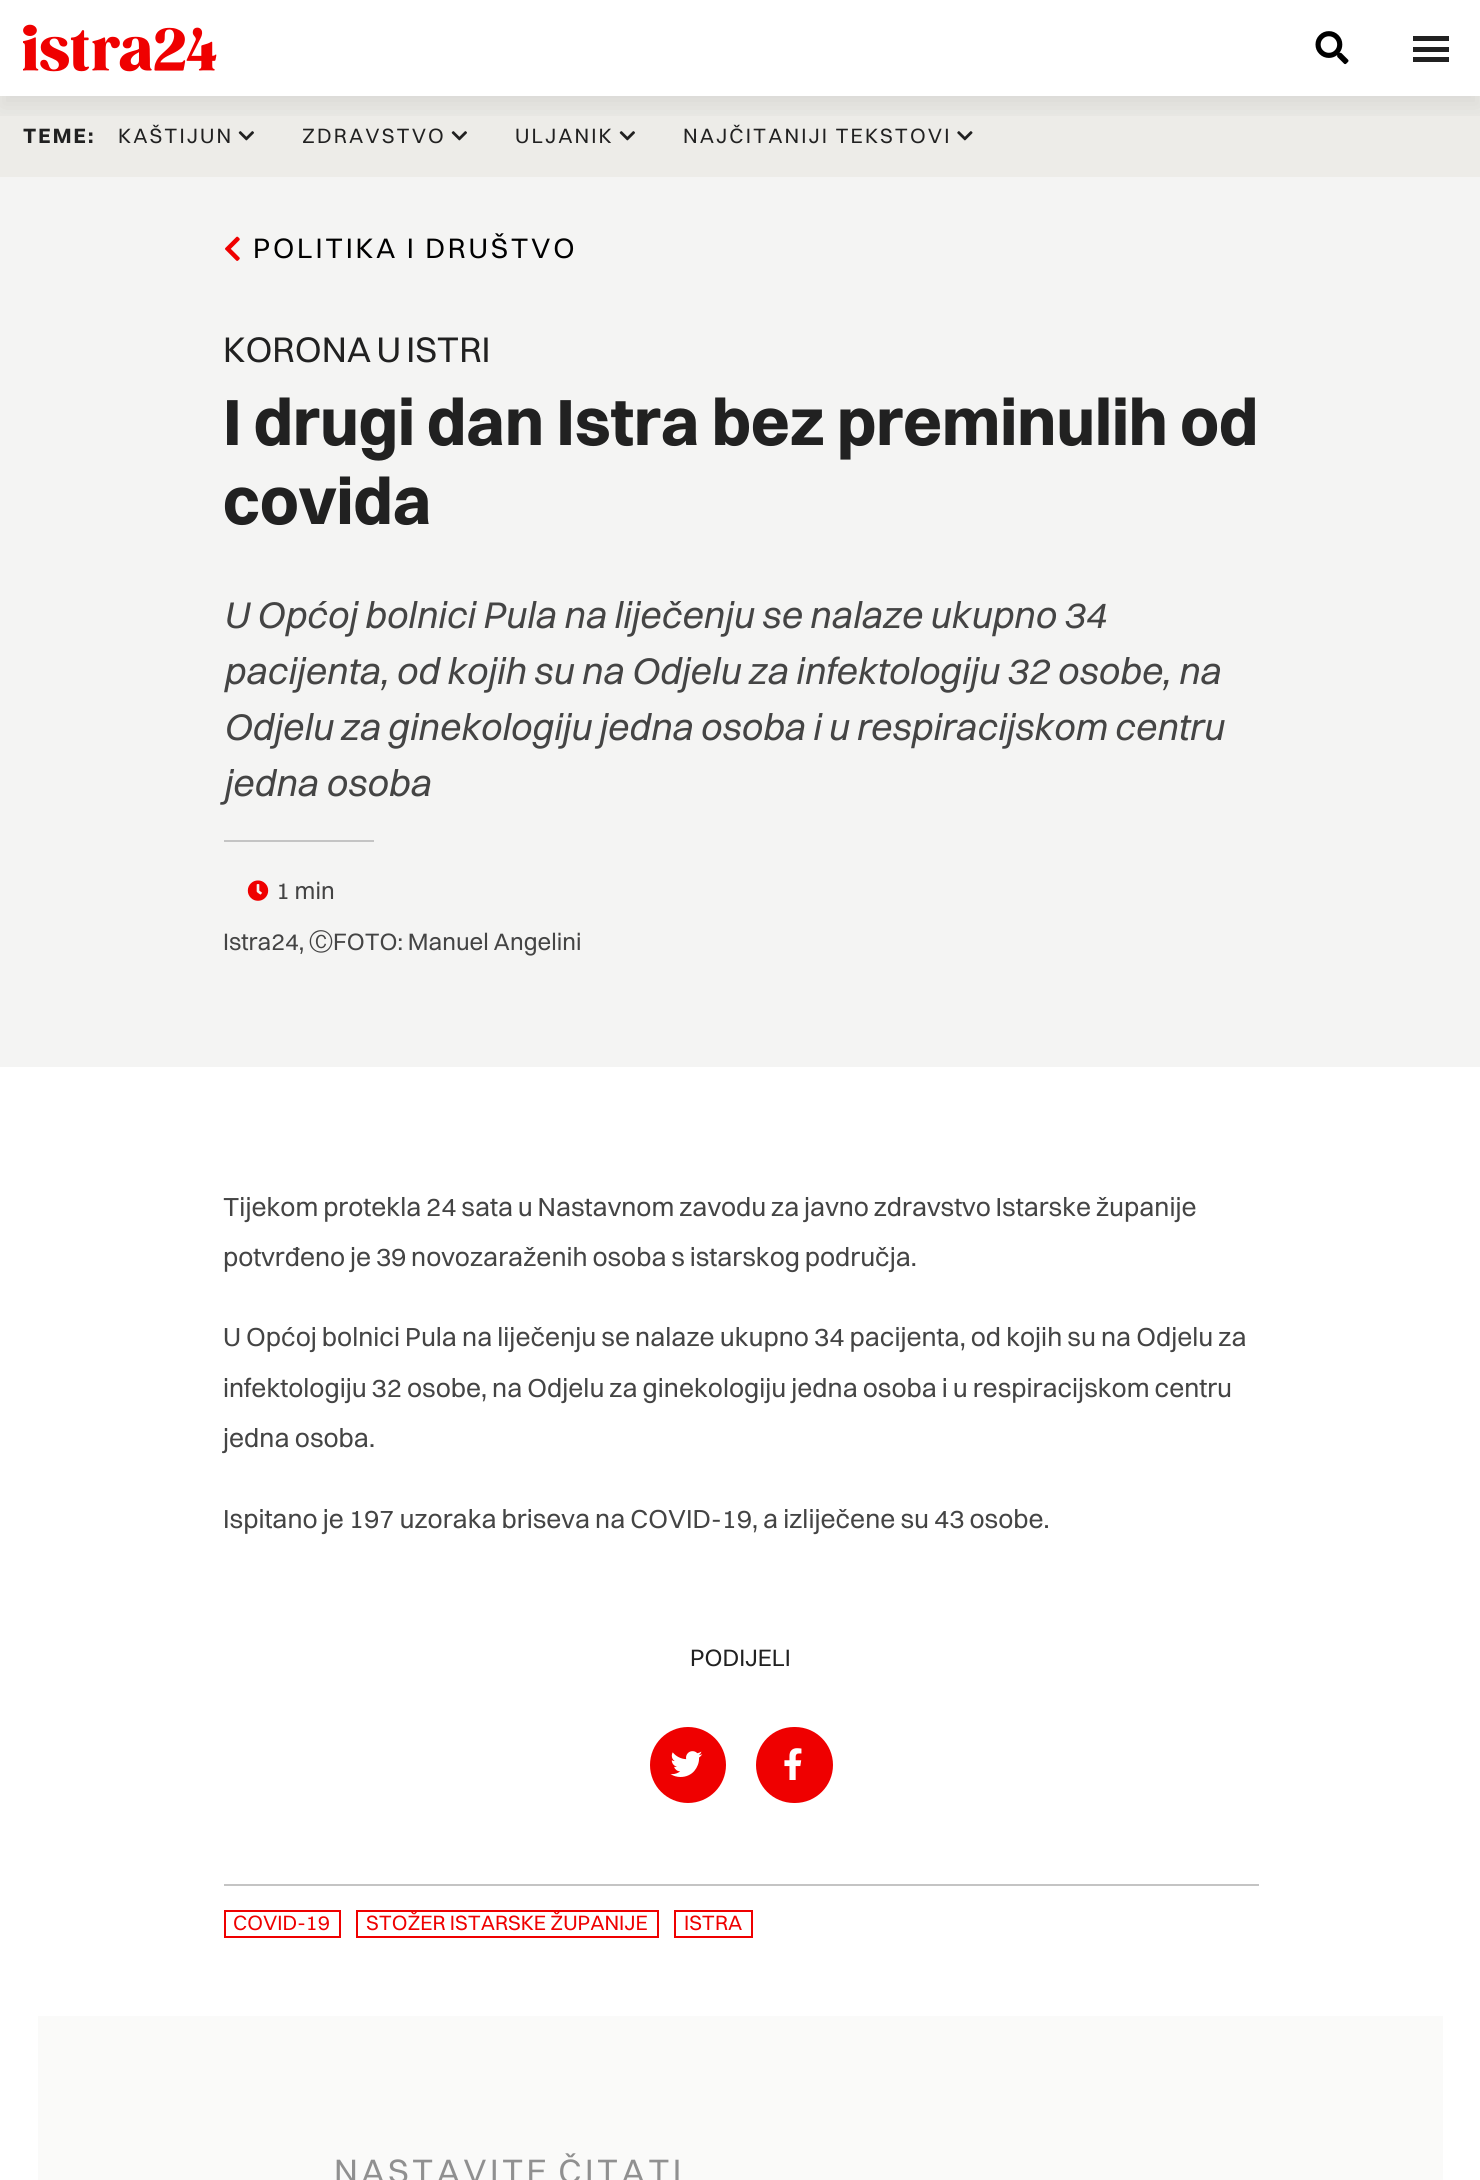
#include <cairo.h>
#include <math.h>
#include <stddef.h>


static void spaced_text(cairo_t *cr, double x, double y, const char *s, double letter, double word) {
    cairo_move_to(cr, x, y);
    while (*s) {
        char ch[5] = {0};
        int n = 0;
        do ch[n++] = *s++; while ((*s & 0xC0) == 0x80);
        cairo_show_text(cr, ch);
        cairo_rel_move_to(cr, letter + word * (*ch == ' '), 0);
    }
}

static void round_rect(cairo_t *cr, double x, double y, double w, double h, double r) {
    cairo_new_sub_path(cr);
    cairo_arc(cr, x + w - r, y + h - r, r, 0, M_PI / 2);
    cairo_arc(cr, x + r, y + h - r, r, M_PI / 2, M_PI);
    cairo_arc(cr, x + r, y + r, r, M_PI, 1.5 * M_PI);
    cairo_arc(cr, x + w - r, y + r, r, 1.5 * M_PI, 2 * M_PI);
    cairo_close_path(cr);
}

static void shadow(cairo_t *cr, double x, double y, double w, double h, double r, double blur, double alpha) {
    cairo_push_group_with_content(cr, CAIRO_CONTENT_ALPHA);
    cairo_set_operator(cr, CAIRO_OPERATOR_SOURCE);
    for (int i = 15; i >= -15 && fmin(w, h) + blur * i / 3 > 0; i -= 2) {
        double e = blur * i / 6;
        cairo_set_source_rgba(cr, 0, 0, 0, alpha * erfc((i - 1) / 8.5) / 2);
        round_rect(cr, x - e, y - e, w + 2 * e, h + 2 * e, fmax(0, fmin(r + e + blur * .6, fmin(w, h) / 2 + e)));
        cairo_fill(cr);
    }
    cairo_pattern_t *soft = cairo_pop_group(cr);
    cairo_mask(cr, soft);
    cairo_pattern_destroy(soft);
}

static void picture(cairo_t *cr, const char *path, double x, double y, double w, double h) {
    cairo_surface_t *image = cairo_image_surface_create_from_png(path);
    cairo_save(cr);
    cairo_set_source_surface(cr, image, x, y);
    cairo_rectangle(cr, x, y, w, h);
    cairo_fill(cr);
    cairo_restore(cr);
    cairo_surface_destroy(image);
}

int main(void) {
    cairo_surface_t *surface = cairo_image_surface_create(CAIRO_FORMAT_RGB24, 1480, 2180);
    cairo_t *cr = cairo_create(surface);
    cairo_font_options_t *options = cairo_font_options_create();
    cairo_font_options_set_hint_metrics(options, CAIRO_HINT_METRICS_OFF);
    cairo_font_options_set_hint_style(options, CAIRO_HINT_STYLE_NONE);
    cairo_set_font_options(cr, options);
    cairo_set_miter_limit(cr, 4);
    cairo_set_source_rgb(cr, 1, 1, 1);
    cairo_paint(cr);
    cairo_set_source_rgb(cr, 0.929, 0.922, 0.91);
    cairo_rectangle(cr, 0, 96, 1480, 81);
    cairo_fill(cr);
    picture(cr, "img3.png", 238, 131, 16, 10);
    picture(cr, "img3.png", 451, 131, 16, 10);
    picture(cr, "img3.png", 619, 131, 16, 10);
    picture(cr, "img4.png", 957, 131, 16, 10);
    cairo_save(cr);
    cairo_rectangle(cr, 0, 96, 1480, 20);
    cairo_clip(cr);
    cairo_set_source_rgb(cr, 0, 0, 0);
    shadow(cr, 0, 12, 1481, 96, 0, 12, 0.08);
    cairo_restore(cr);
    picture(cr, "img1.png", 23, 24, 194, 48);
    picture(cr, "img2.png", 1315, 31, 34, 34);
    cairo_set_source_rgb(cr, 0.129, 0.129, 0.129);
    cairo_rectangle(cr, 1413, 47, 36, 5);
    cairo_fill(cr);
    cairo_rectangle(cr, 1413, 36, 36, 5);
    cairo_fill(cr);
    cairo_rectangle(cr, 1413, 57, 36, 5);
    cairo_fill(cr);
    cairo_select_font_face(cr, "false", CAIRO_FONT_SLANT_NORMAL, CAIRO_FONT_WEIGHT_BOLD);
    cairo_set_font_size(cr, 21);
    spaced_text(cr, 23, 143, "TEME:", 2.1, 0);
    cairo_select_font_face(cr, "false", CAIRO_FONT_SLANT_NORMAL, CAIRO_FONT_WEIGHT_NORMAL);
    spaced_text(cr, 118, 143, "KAŠTIJUN", 2.1, 0);
    spaced_text(cr, 302, 143, "ZDRAVSTVO", 2.1, 0);
    spaced_text(cr, 515, 143, "ULJANIK", 2.1, 0);
    spaced_text(cr, 683, 143, "NAJČITANIJI TEKSTOVI", 2.1, 0);
    cairo_set_source_rgb(cr, 0.957, 0.957, 0.953);
    cairo_rectangle(cr, 0, 177, 1480, 890);
    cairo_fill(cr);
    picture(cr, "img5.png", 225, 236, 15, 25);
    cairo_set_font_size(cr, 28.5);
    cairo_set_source_rgb(cr, 0, 0, 0);
    spaced_text(cr, 253, 258, "POLITIKA I DRUŠTVO", 2.8, 0);
    cairo_set_font_size(cr, 36);
    cairo_set_source_rgb(cr, 0.129, 0.129, 0.129);
    spaced_text(cr, 223, 362, "KORONA U ISTRI", 0, -2);
    cairo_select_font_face(cr, "false", CAIRO_FONT_SLANT_NORMAL, CAIRO_FONT_WEIGHT_BOLD);
    cairo_set_font_size(cr, 66);
    spaced_text(cr, 223, 445, "I drugi dan Istra bez preminulih od", 0, -0.25);
    cairo_move_to(cr, 223, 524);
    cairo_show_text(cr, "covida");
    cairo_select_font_face(cr, "false", CAIRO_FONT_SLANT_ITALIC, CAIRO_FONT_WEIGHT_NORMAL);
    cairo_set_font_size(cr, 37.5);
    cairo_set_source_rgb(cr, 0.267, 0.267, 0.267);
    spaced_text(cr, 223, 628, "U Općoj bolnici Pula na liječenju se nalaze ukupno 34", 0, -0.25);
    spaced_text(cr, 223, 684, "pacijenta, od kojih su na Odjelu za infektologiju 32 osobe, na", 0, -0.25);
    spaced_text(cr, 223, 740, "Odjelu za ginekologiju jedna osoba i u respiracijskom centru", 0, -0.5);
    cairo_move_to(cr, 223, 796);
    cairo_show_text(cr, "jedna osoba");
    cairo_set_source_rgb(cr, 0.769, 0.769, 0.769);
    cairo_rectangle(cr, 224, 840, 150, 2);
    cairo_fill(cr);
    picture(cr, "img6.png", 247, 880, 22, 21);
    cairo_select_font_face(cr, "false", CAIRO_FONT_SLANT_NORMAL, CAIRO_FONT_WEIGHT_NORMAL);
    cairo_set_font_size(cr, 24);
    cairo_set_source_rgb(cr, 0.267, 0.267, 0.267);
    cairo_move_to(cr, 276, 899);
    cairo_show_text(cr, "1 min");
    cairo_move_to(cr, 223, 950);
    cairo_show_text(cr, "Istra24,");
    cairo_select_font_face(cr, "WenQuanYi Zen Hei Medium", CAIRO_FONT_SLANT_NORMAL, CAIRO_FONT_WEIGHT_NORMAL);
    cairo_move_to(cr, 309, 950);
    cairo_show_text(cr, "Ⓒ");
    cairo_select_font_face(cr, "false", CAIRO_FONT_SLANT_NORMAL, CAIRO_FONT_WEIGHT_NORMAL);
    cairo_move_to(cr, 333, 950);
    cairo_show_text(cr, "FOTO: Manuel Angelini");
    cairo_set_font_size(cr, 26.4);
    spaced_text(cr, 223, 1216, "Tijekom protekla 24 sata u Nastavnom zavodu za javno zdravstvo Istarske županije", 0, -0.5);
    spaced_text(cr, 223, 1266, "potvrđeno je 39 novozaraženih osoba s istarskog područja.", 0, -0.5);
    spaced_text(cr, 223, 1346, "U Općoj bolnici Pula na liječenju se nalaze ukupno 34 pacijenta, od kojih su na Odjelu za", 0, -0.2);
    spaced_text(cr, 223, 1397, "infektologiju 32 osobe, na Odjelu za ginekologiju jedna osoba i u respiracijskom centru", 0, -0.3);
    cairo_move_to(cr, 223, 1447);
    cairo_show_text(cr, "jedna osoba.");
    spaced_text(cr, 223, 1528, "Ispitano je 197 uzoraka briseva na COVID-19, a izliječene su 43 osobe.", 0, -0.25);
    cairo_set_font_size(cr, 24);
    cairo_set_source_rgb(cr, 0.129, 0.129, 0.129);
    cairo_move_to(cr, 690, 1666);
    cairo_show_text(cr, "PODIJELI");
    cairo_set_source_rgb(cr, 0.937, 0, 0);
    cairo_new_path(cr);
    cairo_arc(cr, 688, 1765, 38, 0, 2 * M_PI);
    cairo_fill(cr);
    picture(cr, "img7.png", 670, 1751, 33, 26);
    round_rect(cr, 756, 1727, 77, 76, 38);
    cairo_fill(cr);
    picture(cr, "img8.png", 784, 1748, 18, 32);
    cairo_set_source_rgb(cr, 0.769, 0.769, 0.769);
    cairo_rectangle(cr, 224, 1884, 1035, 2);
    cairo_fill(cr);
    cairo_rectangle(cr, 225, 1911, 115, 26);
    cairo_set_source_rgb(cr, 0.937, 0, 0);
    cairo_stroke(cr);
    cairo_set_font_size(cr, 21);
    cairo_move_to(cr, 233, 1930);
    cairo_show_text(cr, "COVID-19");
    cairo_rectangle(cr, 357, 1911, 301, 26);
    cairo_stroke(cr);
    cairo_move_to(cr, 366, 1930);
    cairo_show_text(cr, "STOŽER ISTARSKE ŽUPANIJE");
    cairo_rectangle(cr, 675, 1911, 77, 26);
    cairo_stroke(cr);
    cairo_move_to(cr, 684, 1930);
    cairo_show_text(cr, "ISTRA");
    cairo_set_source_rgb(cr, 0.98, 0.98, 0.976);
    cairo_rectangle(cr, 38, 2016, 1405, 164);
    cairo_fill(cr);
    cairo_set_font_size(cr, 34.25);
    cairo_set_source_rgb(cr, 0.565, 0.565, 0.565);
    spaced_text(cr, 334, 2183, "NASTAVITE ČITATI", 3.4, -2);
    cairo_surface_write_to_png(surface, "page.png");
    cairo_font_options_destroy(options);
    cairo_destroy(cr);
    cairo_surface_destroy(surface);
    return 0;
}
